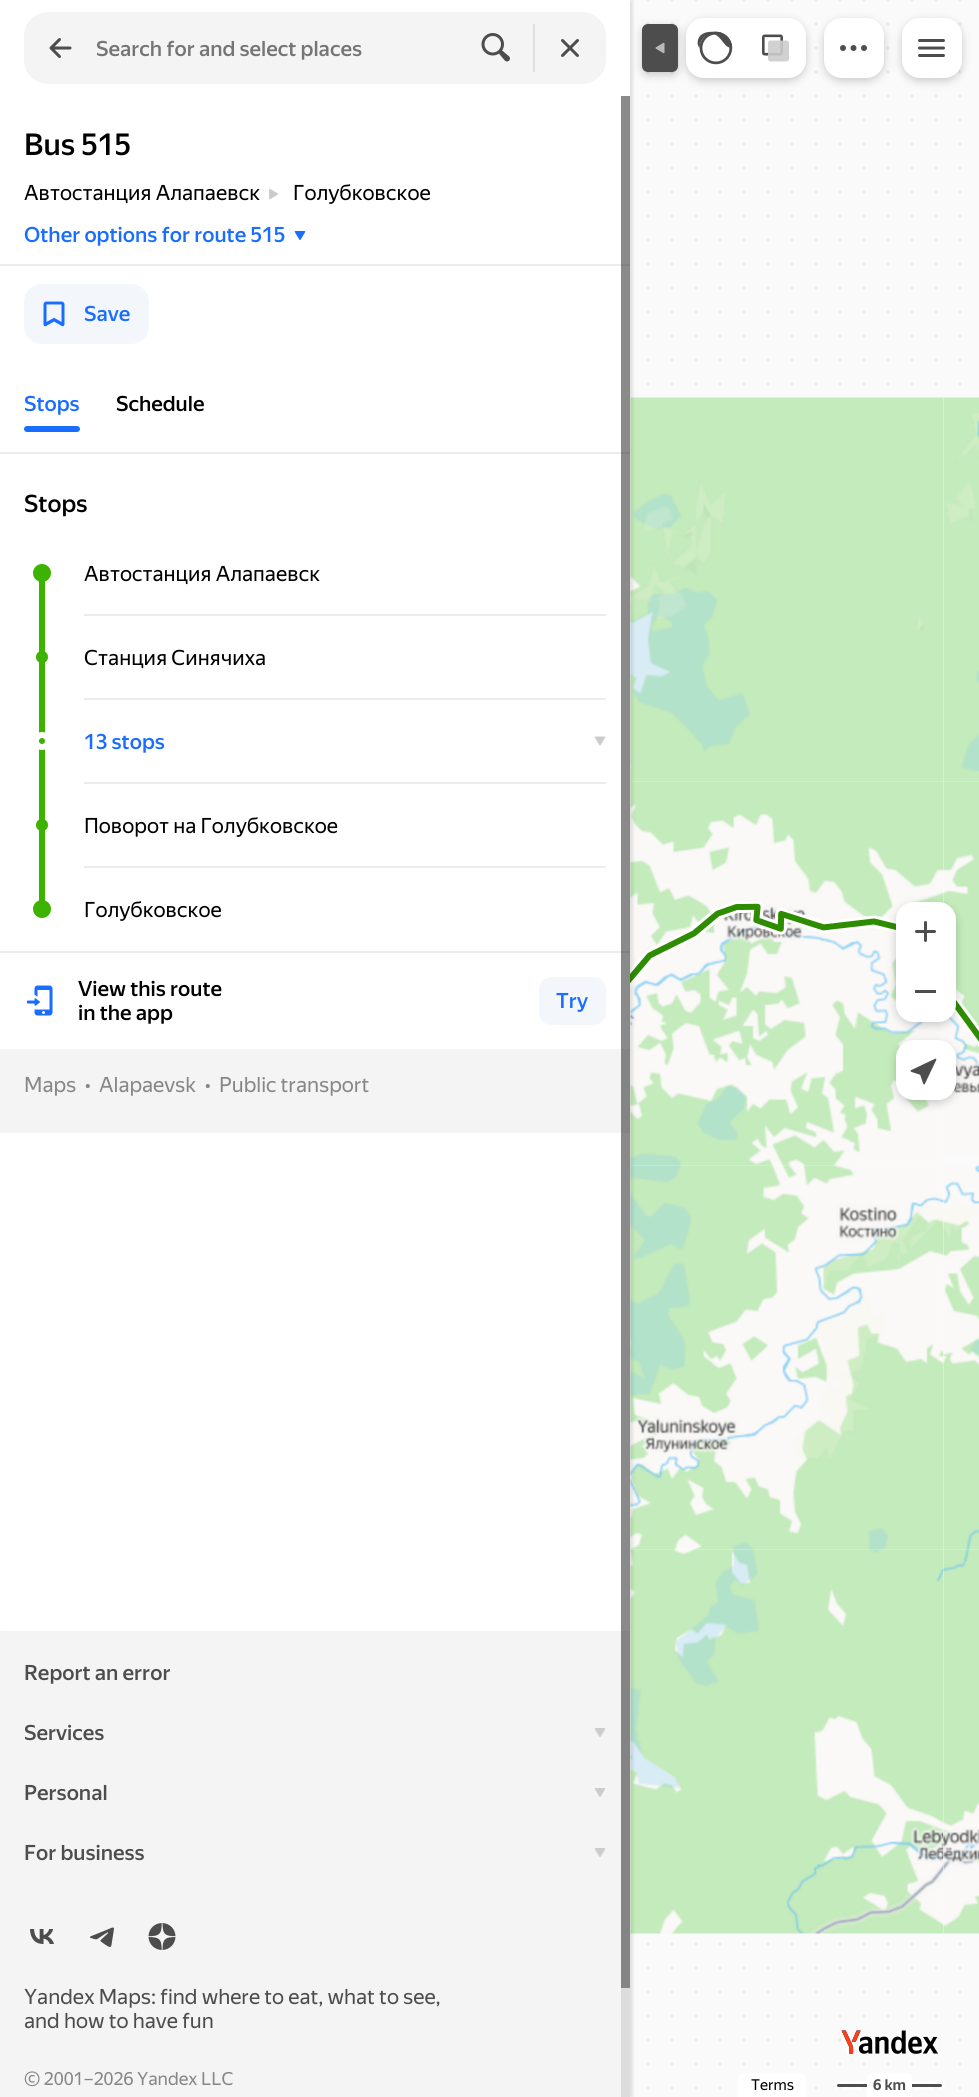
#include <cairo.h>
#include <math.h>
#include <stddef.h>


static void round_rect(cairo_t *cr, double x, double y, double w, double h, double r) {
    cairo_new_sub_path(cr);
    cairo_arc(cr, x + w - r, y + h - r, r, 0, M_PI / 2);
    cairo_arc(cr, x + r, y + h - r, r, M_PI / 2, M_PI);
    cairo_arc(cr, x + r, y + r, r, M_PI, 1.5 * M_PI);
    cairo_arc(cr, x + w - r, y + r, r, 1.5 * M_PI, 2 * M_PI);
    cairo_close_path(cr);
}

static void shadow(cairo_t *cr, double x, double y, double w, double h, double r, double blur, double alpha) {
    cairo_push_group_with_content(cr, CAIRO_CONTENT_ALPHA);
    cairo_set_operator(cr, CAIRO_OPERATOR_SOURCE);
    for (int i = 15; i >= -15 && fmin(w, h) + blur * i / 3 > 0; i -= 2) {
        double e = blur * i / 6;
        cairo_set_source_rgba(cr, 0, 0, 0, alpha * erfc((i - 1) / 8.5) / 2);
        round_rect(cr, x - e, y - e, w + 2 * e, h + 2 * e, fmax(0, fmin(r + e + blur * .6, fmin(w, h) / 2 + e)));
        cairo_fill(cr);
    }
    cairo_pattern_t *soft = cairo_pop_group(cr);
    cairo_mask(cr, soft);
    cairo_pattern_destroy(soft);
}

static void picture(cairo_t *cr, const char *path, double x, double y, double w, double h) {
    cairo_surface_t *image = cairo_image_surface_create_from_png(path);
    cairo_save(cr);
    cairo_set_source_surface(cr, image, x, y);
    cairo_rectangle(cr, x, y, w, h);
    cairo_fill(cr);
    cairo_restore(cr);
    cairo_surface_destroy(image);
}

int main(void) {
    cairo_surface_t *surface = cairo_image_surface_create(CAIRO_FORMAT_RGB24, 979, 2097);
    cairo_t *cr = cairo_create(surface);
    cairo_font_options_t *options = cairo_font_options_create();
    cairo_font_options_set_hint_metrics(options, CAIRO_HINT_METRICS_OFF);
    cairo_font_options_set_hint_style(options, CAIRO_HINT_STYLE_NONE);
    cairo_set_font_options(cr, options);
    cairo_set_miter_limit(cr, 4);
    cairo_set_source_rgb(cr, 1, 1, 1);
    cairo_paint(cr);
    picture(cr, "img1.png", 630, 0, 349, 2097);
    picture(cr, "img22.png", 630, 397, 314, 385);
    picture(cr, "img23.png", 943, 397, 36, 385);
    picture(cr, "img24.png", 630, 781, 314, 385);
    picture(cr, "img26.png", 630, 1165, 314, 385);
    picture(cr, "img27.png", 943, 1165, 36, 385);
    picture(cr, "img28.png", 630, 1549, 314, 385);
    picture(cr, "img25.png", 943, 781, 36, 373);
    picture(cr, "img30.png", 630, 901, 349, 146);
    cairo_set_source_rgb(cr, 0, 0, 0);
    shadow(cr, 3, 0, 630, 2097, 0, 1.5, 0.1);
    shadow(cr, 686, 21, 120, 60, 18, 4.5, 0.2);
    cairo_set_source_rgb(cr, 1, 1, 1);
    cairo_new_path(cr);
    cairo_move_to(cr, 704, 18);
    cairo_line_to(cr, 746, 18);
    cairo_line_to(cr, 746, 78);
    cairo_line_to(cr, 704, 78);
    cairo_curve_to(cr, 694, 78, 686, 70, 686, 60);
    cairo_line_to(cr, 686, 36);
    cairo_curve_to(cr, 686, 26, 694, 18, 704, 18);
    cairo_close_path(cr);
    cairo_fill(cr);
    cairo_set_source_rgb(cr, 0, 0, 0);
    shadow(cr, 642, 27, 36, 48, 6, 4.5, 0.2);
    cairo_set_source_rgb(cr, 1, 1, 1);
    cairo_rectangle(cr, 1, 0, 629, 1631);
    cairo_fill(cr);
    cairo_set_source_rgb(cr, 0.957, 0.957, 0.957);
    round_rect(cr, 24, 12, 582, 72, 24);
    cairo_fill(cr);
    picture(cr, "img2.png", 49, 38, 23, 20);
    cairo_select_font_face(cr, "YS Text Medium", CAIRO_FONT_SLANT_NORMAL, CAIRO_FONT_WEIGHT_NORMAL);
    cairo_set_font_size(cr, 21);
    cairo_set_source_rgb(cr, 0.459, 0.459, 0.459);
    cairo_move_to(cr, 96, 56);
    cairo_show_text(cr, "Search for and select places");
    picture(cr, "img3.png", 481, 33, 29, 29);
    cairo_set_source_rgb(cr, 0.878, 0.878, 0.878);
    cairo_rectangle(cr, 533, 24, 2, 48);
    cairo_fill(cr);
    picture(cr, "img4.png", 561, 39, 18, 18);
    picture(cr, "img5.png", 697, 31, 36, 34);
    cairo_set_source_rgb(cr, 1, 1, 1);
    cairo_new_path(cr);
    cairo_move_to(cr, 746, 18);
    cairo_line_to(cr, 788, 18);
    cairo_curve_to(cr, 798, 18, 806, 26, 806, 36);
    cairo_line_to(cr, 806, 60);
    cairo_curve_to(cr, 806, 70, 798, 78, 788, 78);
    cairo_line_to(cr, 746, 78);
    cairo_close_path(cr);
    cairo_fill(cr);
    picture(cr, "img6.png", 762, 34, 27, 28);
    cairo_set_source_rgb(cr, 0, 0, 0);
    shadow(cr, 824, 21, 60, 60, 18, 4.5, 0.2);
    cairo_set_source_rgb(cr, 1, 1, 1);
    round_rect(cr, 824, 18, 60, 60, 18);
    cairo_fill(cr);
    picture(cr, "img7.png", 840, 45, 27, 6);
    cairo_set_source_rgb(cr, 0, 0, 0);
    shadow(cr, 902, 21, 60, 60, 18, 4.5, 0.2);
    cairo_set_source_rgb(cr, 1, 1, 1);
    round_rect(cr, 902, 18, 60, 60, 18);
    cairo_fill(cr);
    picture(cr, "img8.png", 918, 39, 27, 18);
    cairo_set_source_rgb(cr, 0, 0, 0);
    shadow(cr, 896, 905, 60, 120, 18, 4.5, 0.2);
    cairo_set_source_rgb(cr, 1, 1, 1);
    cairo_new_path(cr);
    cairo_move_to(cr, 914, 902);
    cairo_line_to(cr, 938, 902);
    cairo_curve_to(cr, 948, 902, 956, 910, 956, 920);
    cairo_line_to(cr, 956, 962);
    cairo_line_to(cr, 896, 962);
    cairo_line_to(cr, 896, 920);
    cairo_curve_to(cr, 896, 910, 904, 902, 914, 902);
    cairo_close_path(cr);
    cairo_fill(cr);
    picture(cr, "img9.png", 915, 921, 21, 21);
    cairo_new_path(cr);
    cairo_move_to(cr, 896, 962);
    cairo_line_to(cr, 956, 962);
    cairo_line_to(cr, 956, 1004);
    cairo_curve_to(cr, 956, 1014, 948, 1022, 938, 1022);
    cairo_line_to(cr, 914, 1022);
    cairo_curve_to(cr, 904, 1022, 896, 1014, 896, 1004);
    cairo_close_path(cr);
    cairo_fill(cr);
    cairo_set_source_rgb(cr, 0.302, 0.302, 0.302);
    cairo_rectangle(cr, 915, 990, 21, 3);
    cairo_fill(cr);
    cairo_set_source_rgb(cr, 0, 0, 0);
    shadow(cr, 896, 1043, 60, 60, 18, 4.5, 0.2);
    cairo_set_source_rgb(cr, 1, 1, 1);
    round_rect(cr, 896, 1040, 60, 60, 18);
    cairo_fill(cr);
    picture(cr, "img10.png", 910, 1058, 27, 27);
    cairo_set_source_rgb(cr, 0.302, 0.302, 0.302);
    round_rect(cr, 642, 24, 36, 48, 6);
    cairo_fill(cr);
    picture(cr, "img11.png", 655, 42, 10, 12);
    cairo_set_font_size(cr, 30);
    cairo_set_source_rgb(cr, 0, 0, 0);
    cairo_move_to(cr, 24, 155);
    cairo_show_text(cr, "Bus 515");
    cairo_select_font_face(cr, "YS Text", CAIRO_FONT_SLANT_NORMAL, CAIRO_FONT_WEIGHT_NORMAL);
    cairo_set_font_size(cr, 21);
    cairo_move_to(cr, 24, 200);
    cairo_show_text(cr, "Автостанция Алапаевск");
    picture(cr, "img12.png", 269, 188, 9, 12);
    cairo_move_to(cr, 293, 200);
    cairo_show_text(cr, "Голубковское");
    cairo_select_font_face(cr, "YS Text Medium", CAIRO_FONT_SLANT_NORMAL, CAIRO_FONT_WEIGHT_NORMAL);
    cairo_set_source_rgb(cr, 0.098, 0.427, 1);
    cairo_move_to(cr, 24, 242);
    cairo_show_text(cr, "Other options for route 515");
    picture(cr, "img13.png", 294, 231, 12, 9);
    cairo_set_source_rgb(cr, 0.922, 0.922, 0.922);
    cairo_rectangle(cr, 0, 264, 630, 2);
    cairo_fill(cr);
    cairo_set_source_rgb(cr, 0.953, 0.965, 0.988);
    round_rect(cr, 24, 284, 125, 60, 18);
    cairo_fill(cr);
    picture(cr, "img14.png", 43, 301, 22, 26);
    cairo_set_source_rgb(cr, 0.098, 0.427, 1);
    cairo_move_to(cr, 84, 321);
    cairo_show_text(cr, "Save");
    cairo_move_to(cr, 24, 411);
    cairo_show_text(cr, "Stops");
    cairo_set_source_rgb(cr, 0, 0, 0);
    cairo_move_to(cr, 116, 411);
    cairo_show_text(cr, "Schedule");
    cairo_set_source_rgb(cr, 0.098, 0.427, 1);
    round_rect(cr, 24, 426, 56, 6, 3);
    cairo_fill(cr);
    cairo_set_source_rgb(cr, 0.922, 0.922, 0.922);
    cairo_rectangle(cr, 0, 452, 630, 2);
    cairo_fill(cr);
    cairo_set_font_size(cr, 24);
    cairo_set_source_rgb(cr, 0, 0, 0);
    cairo_move_to(cr, 24, 512);
    cairo_show_text(cr, "Stops");
    cairo_set_source_rgb(cr, 0.231, 0.702, 0);
    cairo_rectangle(cr, 39, 573, 6, 336);
    cairo_fill(cr);
    cairo_arc(cr, 42, 573, 7.5, 0, 2 * M_PI);
    cairo_fill_preserve(cr);
    cairo_set_line_width(cr, 3);
    cairo_stroke(cr);
    cairo_select_font_face(cr, "YS Text", CAIRO_FONT_SLANT_NORMAL, CAIRO_FONT_WEIGHT_NORMAL);
    cairo_set_font_size(cr, 21);
    cairo_set_source_rgb(cr, 0, 0, 0);
    cairo_move_to(cr, 84, 581);
    cairo_show_text(cr, "Автостанция Алапаевск");
    cairo_set_source_rgb(cr, 0.922, 0.922, 0.922);
    cairo_rectangle(cr, 84, 614, 522, 2);
    cairo_fill(cr);
    cairo_set_source_rgb(cr, 0.231, 0.702, 0);
    cairo_arc(cr, 42, 657, 4.5, 0, 2 * M_PI);
    cairo_fill_preserve(cr);
    cairo_stroke(cr);
    cairo_set_source_rgb(cr, 0, 0, 0);
    cairo_move_to(cr, 84, 665);
    cairo_show_text(cr, "Станция Синячиха");
    cairo_set_source_rgb(cr, 0.922, 0.922, 0.922);
    cairo_rectangle(cr, 84, 698, 522, 2);
    cairo_fill(cr);
    cairo_set_source_rgb(cr, 0.231, 0.702, 0);
    cairo_arc(cr, 42, 741, 6, 0, 2 * M_PI);
    cairo_fill_preserve(cr);
    cairo_set_source_rgb(cr, 1, 1, 1);
    cairo_set_line_width(cr, 6);
    cairo_stroke(cr);
    cairo_select_font_face(cr, "YS Text Medium", CAIRO_FONT_SLANT_NORMAL, CAIRO_FONT_WEIGHT_NORMAL);
    cairo_set_source_rgb(cr, 0.098, 0.427, 1);
    cairo_move_to(cr, 84, 749);
    cairo_show_text(cr, "13 stops");
    picture(cr, "img15.png", 594, 736, 12, 10);
    cairo_set_source_rgb(cr, 0.922, 0.922, 0.922);
    cairo_rectangle(cr, 84, 782, 522, 2);
    cairo_fill(cr);
    cairo_set_source_rgb(cr, 0.231, 0.702, 0);
    cairo_arc(cr, 42, 825, 4.5, 0, 2 * M_PI);
    cairo_fill_preserve(cr);
    cairo_set_line_width(cr, 3);
    cairo_stroke(cr);
    cairo_select_font_face(cr, "YS Text", CAIRO_FONT_SLANT_NORMAL, CAIRO_FONT_WEIGHT_NORMAL);
    cairo_set_source_rgb(cr, 0, 0, 0);
    cairo_move_to(cr, 84, 833);
    cairo_show_text(cr, "Поворот на Голубковское");
    cairo_set_source_rgb(cr, 0.922, 0.922, 0.922);
    cairo_rectangle(cr, 84, 866, 522, 2);
    cairo_fill(cr);
    cairo_set_source_rgb(cr, 0.231, 0.702, 0);
    cairo_arc(cr, 42, 909, 7.5, 0, 2 * M_PI);
    cairo_fill_preserve(cr);
    cairo_stroke(cr);
    cairo_set_source_rgb(cr, 0, 0, 0);
    cairo_move_to(cr, 84, 917);
    cairo_show_text(cr, "Голубковское");
    cairo_set_source_rgb(cr, 0.922, 0.922, 0.922);
    cairo_rectangle(cr, 0, 951, 630, 2);
    cairo_fill(cr);
    picture(cr, "img16.png", 27, 985, 26, 31);
    cairo_select_font_face(cr, "YS Text Medium", CAIRO_FONT_SLANT_NORMAL, CAIRO_FONT_WEIGHT_NORMAL);
    cairo_set_source_rgb(cr, 0, 0, 0);
    cairo_move_to(cr, 78, 996);
    cairo_show_text(cr, "View this route");
    cairo_move_to(cr, 78, 1020);
    cairo_show_text(cr, "in the app");
    cairo_set_source_rgb(cr, 0.953, 0.965, 0.988);
    round_rect(cr, 539, 977, 67, 48, 12);
    cairo_fill(cr);
    cairo_set_source_rgb(cr, 0.098, 0.427, 1);
    cairo_move_to(cr, 556, 1008);
    cairo_show_text(cr, "Try");
    cairo_set_source_rgb(cr, 0.957, 0.957, 0.957);
    cairo_rectangle(cr, 0, 1049, 630, 84);
    cairo_fill(cr);
    cairo_select_font_face(cr, "YS Text", CAIRO_FONT_SLANT_NORMAL, CAIRO_FONT_WEIGHT_NORMAL);
    cairo_set_source_rgb(cr, 0.529, 0.529, 0.529);
    cairo_move_to(cr, 24, 1092);
    cairo_show_text(cr, "Maps");
    cairo_move_to(cr, 85, 1092);
    cairo_show_text(cr, "•");
    cairo_move_to(cr, 99, 1092);
    cairo_show_text(cr, "Alapaevsk");
    cairo_move_to(cr, 205, 1092);
    cairo_show_text(cr, "•");
    cairo_move_to(cr, 219, 1092);
    cairo_show_text(cr, "Public transport");
    cairo_set_source_rgb(cr, 0.957, 0.957, 0.957);
    cairo_rectangle(cr, 0, 1631, 630, 466);
    cairo_fill(cr);
    cairo_select_font_face(cr, "YS Text Medium", CAIRO_FONT_SLANT_NORMAL, CAIRO_FONT_WEIGHT_NORMAL);
    cairo_set_source_rgb(cr, 0.302, 0.302, 0.302);
    cairo_move_to(cr, 24, 1680);
    cairo_show_text(cr, "Report an error");
    cairo_move_to(cr, 24, 1740);
    cairo_show_text(cr, "Services");
    picture(cr, "img17.png", 594, 1728, 12, 9);
    cairo_move_to(cr, 24, 1800);
    cairo_show_text(cr, "Personal");
    picture(cr, "img17.png", 594, 1788, 12, 9);
    cairo_move_to(cr, 24, 1860);
    cairo_show_text(cr, "For business");
    picture(cr, "img17.png", 594, 1848, 12, 9);
    picture(cr, "img18.png", 30, 1929, 24, 15);
    picture(cr, "img19.png", 90, 1927, 24, 20);
    picture(cr, "img20.png", 148, 1923, 28, 27);
    cairo_select_font_face(cr, "YS Text", CAIRO_FONT_SLANT_NORMAL, CAIRO_FONT_WEIGHT_NORMAL);
    cairo_move_to(cr, 24, 2004);
    cairo_show_text(cr, "Yandex Maps: find where to eat, what to see,");
    cairo_move_to(cr, 24, 2028);
    cairo_show_text(cr, "and how to have fun");
    cairo_set_font_size(cr, 18);
    cairo_set_source_rgb(cr, 0.529, 0.529, 0.529);
    cairo_move_to(cr, 24, 2085);
    cairo_show_text(cr, "© 2001–2026 Yandex LLC");
    cairo_set_source_rgba(cr, 0, 0, 0, 0.1);
    cairo_rectangle(cr, 621, 96, 9, 2001);
    cairo_fill(cr);
    cairo_set_source_rgba(cr, 0, 0, 0, 0.4);
    cairo_rectangle(cr, 621, 96, 9, 1892);
    cairo_fill(cr);
    picture(cr, "img21.png", 841, 2030, 97, 24);
    cairo_set_source_rgb(cr, 1, 1, 1);
    cairo_new_path(cr);
    cairo_move_to(cr, 744, 2073);
    cairo_line_to(cr, 800, 2073);
    cairo_curve_to(cr, 803.5, 2073, 806, 2075.5, 806, 2079);
    cairo_line_to(cr, 806, 2097);
    cairo_line_to(cr, 738, 2097);
    cairo_line_to(cr, 738, 2079);
    cairo_curve_to(cr, 738, 2075.5, 740.5, 2073, 744, 2073);
    cairo_close_path(cr);
    cairo_fill(cr);
    cairo_set_font_size(cr, 15);
    cairo_set_source_rgb(cr, 0, 0, 0);
    cairo_move_to(cr, 751, 2090);
    cairo_show_text(cr, "Terms");
    cairo_set_source_rgba(cr, 1, 1, 1, 0.6);
    round_rect(cr, 834, 2081, 111, 9, 4.5);
    cairo_fill(cr);
    cairo_set_source_rgb(cr, 0.302, 0.302, 0.302);
    round_rect(cr, 837, 2084, 105, 3, 1.5);
    cairo_fill(cr);
    cairo_set_source_rgb(cr, 1, 1, 1);
    cairo_new_path(cr);
    cairo_move_to(cr, 873, 2073);
    cairo_line_to(cr, 906, 2073);
    cairo_curve_to(cr, 909.5, 2073, 912, 2075.5, 912, 2079);
    cairo_line_to(cr, 912, 2097);
    cairo_line_to(cr, 867, 2097);
    cairo_line_to(cr, 867, 2079);
    cairo_curve_to(cr, 867, 2075.5, 869.5, 2073, 873, 2073);
    cairo_close_path(cr);
    cairo_fill(cr);
    cairo_select_font_face(cr, "YS Text", CAIRO_FONT_SLANT_NORMAL, CAIRO_FONT_WEIGHT_BOLD);
    cairo_set_source_rgb(cr, 0.302, 0.302, 0.302);
    cairo_move_to(cr, 873, 2090);
    cairo_show_text(cr, "6 km");
    picture(cr, "img29.png", 943, 1549, 36, 385);
    cairo_surface_write_to_png(surface, "page.png");
    cairo_font_options_destroy(options);
    cairo_destroy(cr);
    cairo_surface_destroy(surface);
    return 0;
}
